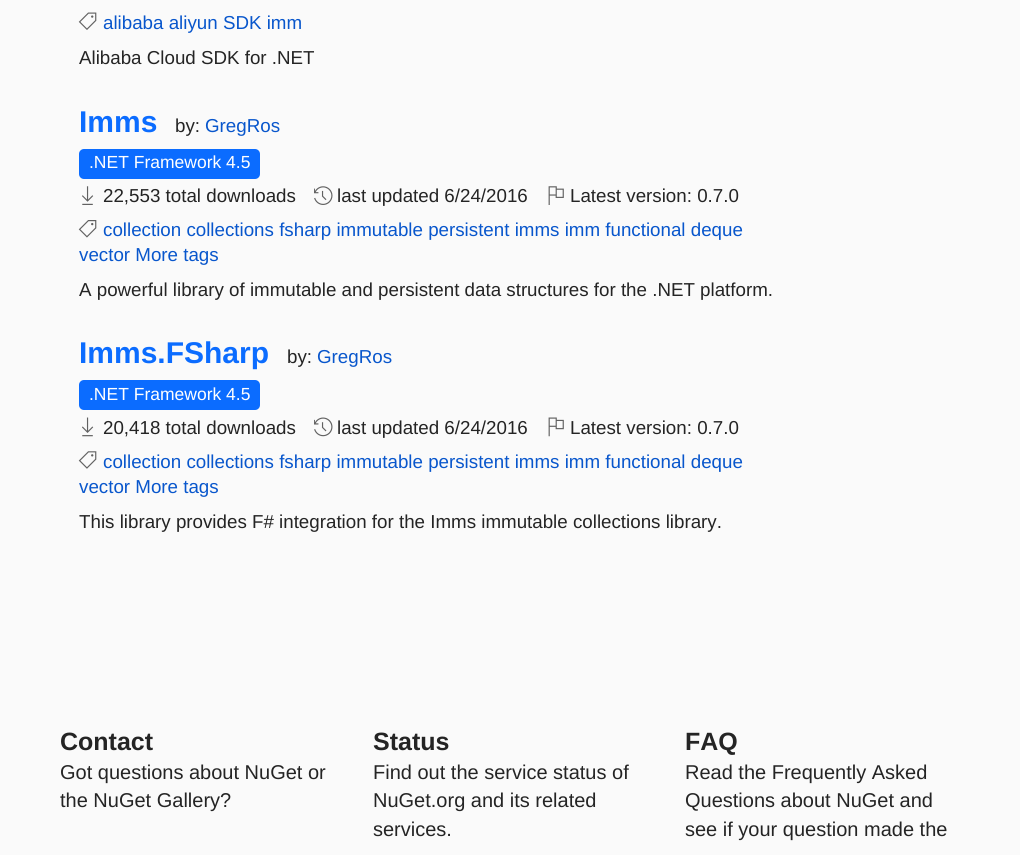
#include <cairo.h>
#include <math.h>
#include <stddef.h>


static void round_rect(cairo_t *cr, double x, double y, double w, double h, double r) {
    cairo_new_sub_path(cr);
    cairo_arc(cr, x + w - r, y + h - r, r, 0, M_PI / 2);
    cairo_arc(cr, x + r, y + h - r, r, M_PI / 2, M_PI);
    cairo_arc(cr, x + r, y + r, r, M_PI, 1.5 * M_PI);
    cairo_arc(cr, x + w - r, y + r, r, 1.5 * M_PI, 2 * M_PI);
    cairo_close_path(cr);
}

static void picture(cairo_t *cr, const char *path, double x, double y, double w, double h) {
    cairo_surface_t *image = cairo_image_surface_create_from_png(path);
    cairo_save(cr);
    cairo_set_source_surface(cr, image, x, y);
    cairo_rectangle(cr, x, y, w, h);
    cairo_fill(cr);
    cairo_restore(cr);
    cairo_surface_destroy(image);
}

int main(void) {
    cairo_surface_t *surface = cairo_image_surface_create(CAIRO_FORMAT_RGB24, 1020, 855);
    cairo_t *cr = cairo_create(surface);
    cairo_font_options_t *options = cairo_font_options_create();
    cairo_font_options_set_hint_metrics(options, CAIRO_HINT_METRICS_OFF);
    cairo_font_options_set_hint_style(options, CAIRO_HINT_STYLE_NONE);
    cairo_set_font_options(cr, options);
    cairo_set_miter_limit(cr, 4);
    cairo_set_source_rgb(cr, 0.98, 0.98, 0.98);
    cairo_paint(cr);
    picture(cr, "img1.png", 78, 12, 19, 18);
    cairo_select_font_face(cr, "Liberation Sans", CAIRO_FONT_SLANT_NORMAL, CAIRO_FONT_WEIGHT_NORMAL);
    cairo_set_font_size(cr, 18.75);
    cairo_set_source_rgb(cr, 0.035, 0.337, 0.8);
    cairo_move_to(cr, 103, 29);
    cairo_show_text(cr, "alibaba aliyun SDK imm");
    cairo_set_source_rgb(cr, 0.141, 0.141, 0.141);
    cairo_move_to(cr, 79, 64);
    cairo_show_text(cr, "Alibaba Cloud SDK for .NET");
    cairo_select_font_face(cr, "Liberation Sans", CAIRO_FONT_SLANT_NORMAL, CAIRO_FONT_WEIGHT_BOLD);
    cairo_set_font_size(cr, 30);
    cairo_set_source_rgb(cr, 0.043, 0.424, 1);
    cairo_move_to(cr, 79, 132);
    cairo_show_text(cr, "Imms");
    cairo_select_font_face(cr, "Liberation Sans", CAIRO_FONT_SLANT_NORMAL, CAIRO_FONT_WEIGHT_NORMAL);
    cairo_set_font_size(cr, 18.75);
    cairo_set_source_rgb(cr, 0.141, 0.141, 0.141);
    cairo_move_to(cr, 175, 132);
    cairo_show_text(cr, "by:");
    cairo_set_source_rgb(cr, 0.035, 0.337, 0.8);
    cairo_move_to(cr, 205, 132);
    cairo_show_text(cr, "GregRos");
    cairo_set_source_rgb(cr, 0.043, 0.424, 1);
    round_rect(cr, 79, 149, 181, 30, 5);
    cairo_fill(cr);
    cairo_set_font_size(cr, 17.5);
    cairo_set_source_rgb(cr, 1, 1, 1);
    cairo_move_to(cr, 89, 168);
    cairo_show_text(cr, ".NET Framework 4.5");
    picture(cr, "img2.png", 82, 186, 12, 19);
    cairo_set_font_size(cr, 18.75);
    cairo_set_source_rgb(cr, 0.141, 0.141, 0.141);
    cairo_move_to(cr, 103, 202);
    cairo_show_text(cr, "22,553 total downloads");
    picture(cr, "img3.png", 314, 186, 19, 19);
    cairo_move_to(cr, 337, 202);
    cairo_show_text(cr, "last updated 6/24/2016");
    picture(cr, "img4.png", 548, 186, 16, 19);
    cairo_move_to(cr, 570, 202);
    cairo_show_text(cr, "Latest version: 0.7.0");
    picture(cr, "img5.png", 78, 220, 19, 18);
    cairo_set_source_rgb(cr, 0.035, 0.337, 0.8);
    cairo_move_to(cr, 103, 236);
    cairo_show_text(cr, "collection collections fsharp immutable persistent imms imm functional deque");
    cairo_move_to(cr, 79, 261);
    cairo_show_text(cr, "vector More tags");
    cairo_set_source_rgb(cr, 0.141, 0.141, 0.141);
    cairo_move_to(cr, 79, 296);
    cairo_show_text(cr, "A powerful library of immutable and persistent data structures for the .NET platform.");
    cairo_select_font_face(cr, "Liberation Sans", CAIRO_FONT_SLANT_NORMAL, CAIRO_FONT_WEIGHT_BOLD);
    cairo_set_font_size(cr, 30);
    cairo_set_source_rgb(cr, 0.043, 0.424, 1);
    cairo_move_to(cr, 79, 363);
    cairo_show_text(cr, "Imms.FSharp");
    cairo_select_font_face(cr, "Liberation Sans", CAIRO_FONT_SLANT_NORMAL, CAIRO_FONT_WEIGHT_NORMAL);
    cairo_set_font_size(cr, 18.75);
    cairo_set_source_rgb(cr, 0.141, 0.141, 0.141);
    cairo_move_to(cr, 287, 363);
    cairo_show_text(cr, "by:");
    cairo_set_source_rgb(cr, 0.035, 0.337, 0.8);
    cairo_move_to(cr, 317, 363);
    cairo_show_text(cr, "GregRos");
    cairo_set_source_rgb(cr, 0.043, 0.424, 1);
    round_rect(cr, 79, 380, 181, 30, 5);
    cairo_fill(cr);
    cairo_set_font_size(cr, 17.5);
    cairo_set_source_rgb(cr, 1, 1, 1);
    cairo_move_to(cr, 89, 400);
    cairo_show_text(cr, ".NET Framework 4.5");
    picture(cr, "img6.png", 82, 417, 12, 20);
    cairo_set_font_size(cr, 18.75);
    cairo_set_source_rgb(cr, 0.141, 0.141, 0.141);
    cairo_move_to(cr, 103, 434);
    cairo_show_text(cr, "20,418 total downloads");
    picture(cr, "img7.png", 314, 417, 19, 20);
    cairo_move_to(cr, 337, 434);
    cairo_show_text(cr, "last updated 6/24/2016");
    picture(cr, "img8.png", 548, 417, 16, 20);
    cairo_move_to(cr, 570, 434);
    cairo_show_text(cr, "Latest version: 0.7.0");
    picture(cr, "img9.png", 78, 451, 19, 18);
    cairo_set_source_rgb(cr, 0.035, 0.337, 0.8);
    cairo_move_to(cr, 103, 468);
    cairo_show_text(cr, "collection collections fsharp immutable persistent imms imm functional deque");
    cairo_move_to(cr, 79, 493);
    cairo_show_text(cr, "vector More tags");
    cairo_set_source_rgb(cr, 0.141, 0.141, 0.141);
    cairo_move_to(cr, 79, 528);
    cairo_show_text(cr, "This library provides F# integration for the Imms immutable collections library.");
    cairo_select_font_face(cr, "Liberation Sans", CAIRO_FONT_SLANT_NORMAL, CAIRO_FONT_WEIGHT_BOLD);
    cairo_set_font_size(cr, 25);
    cairo_move_to(cr, 60, 750);
    cairo_show_text(cr, "Contact");
    cairo_select_font_face(cr, "Liberation Sans", CAIRO_FONT_SLANT_NORMAL, CAIRO_FONT_WEIGHT_NORMAL);
    cairo_set_font_size(cr, 20);
    cairo_move_to(cr, 60, 779);
    cairo_show_text(cr, "Got questions about NuGet or");
    cairo_move_to(cr, 60, 807);
    cairo_show_text(cr, "the NuGet Gallery?");
    cairo_select_font_face(cr, "Liberation Sans", CAIRO_FONT_SLANT_NORMAL, CAIRO_FONT_WEIGHT_BOLD);
    cairo_set_font_size(cr, 25);
    cairo_move_to(cr, 373, 750);
    cairo_show_text(cr, "Status");
    cairo_select_font_face(cr, "Liberation Sans", CAIRO_FONT_SLANT_NORMAL, CAIRO_FONT_WEIGHT_NORMAL);
    cairo_set_font_size(cr, 20);
    cairo_move_to(cr, 373, 779);
    cairo_show_text(cr, "Find out the service status of");
    cairo_move_to(cr, 373, 807);
    cairo_show_text(cr, "NuGet.org and its related");
    cairo_move_to(cr, 373, 836);
    cairo_show_text(cr, "services.");
    cairo_select_font_face(cr, "Liberation Sans", CAIRO_FONT_SLANT_NORMAL, CAIRO_FONT_WEIGHT_BOLD);
    cairo_set_font_size(cr, 25);
    cairo_move_to(cr, 685, 750);
    cairo_show_text(cr, "FAQ");
    cairo_select_font_face(cr, "Liberation Sans", CAIRO_FONT_SLANT_NORMAL, CAIRO_FONT_WEIGHT_NORMAL);
    cairo_set_font_size(cr, 20);
    cairo_move_to(cr, 685, 779);
    cairo_show_text(cr, "Read the Frequently Asked");
    cairo_move_to(cr, 685, 807);
    cairo_show_text(cr, "Questions about NuGet and");
    cairo_move_to(cr, 685, 836);
    cairo_show_text(cr, "see if your question made the");
    cairo_surface_write_to_png(surface, "page.png");
    cairo_font_options_destroy(options);
    cairo_destroy(cr);
    cairo_surface_destroy(surface);
    return 0;
}
